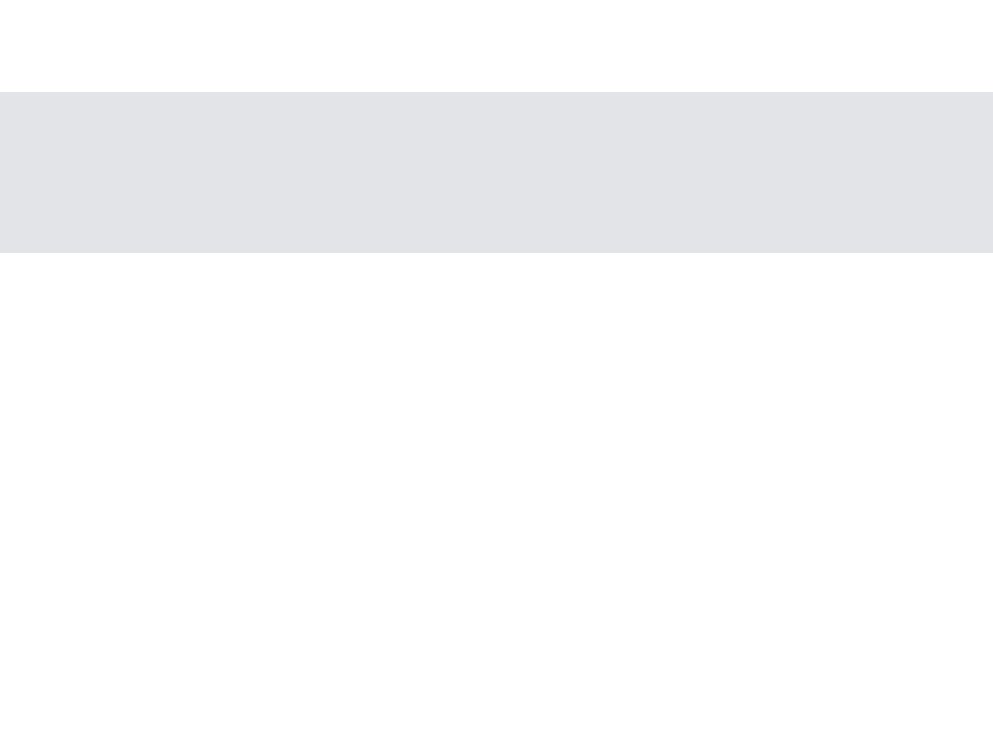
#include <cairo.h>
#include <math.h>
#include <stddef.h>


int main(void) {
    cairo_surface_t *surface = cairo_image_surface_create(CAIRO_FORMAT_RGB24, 993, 753);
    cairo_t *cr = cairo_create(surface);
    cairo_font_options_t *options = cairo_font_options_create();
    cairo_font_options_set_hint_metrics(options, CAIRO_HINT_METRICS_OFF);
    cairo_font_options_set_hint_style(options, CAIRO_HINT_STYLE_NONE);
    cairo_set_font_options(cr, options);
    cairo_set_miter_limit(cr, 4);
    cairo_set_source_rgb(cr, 1, 1, 1);
    cairo_paint(cr);
    cairo_set_source_rgb(cr, 0.89, 0.894, 0.906);
    cairo_rectangle(cr, 0, 92, 993, 161);
    cairo_fill(cr);
    cairo_surface_write_to_png(surface, "page.png");
    cairo_font_options_destroy(options);
    cairo_destroy(cr);
    cairo_surface_destroy(surface);
    return 0;
}
